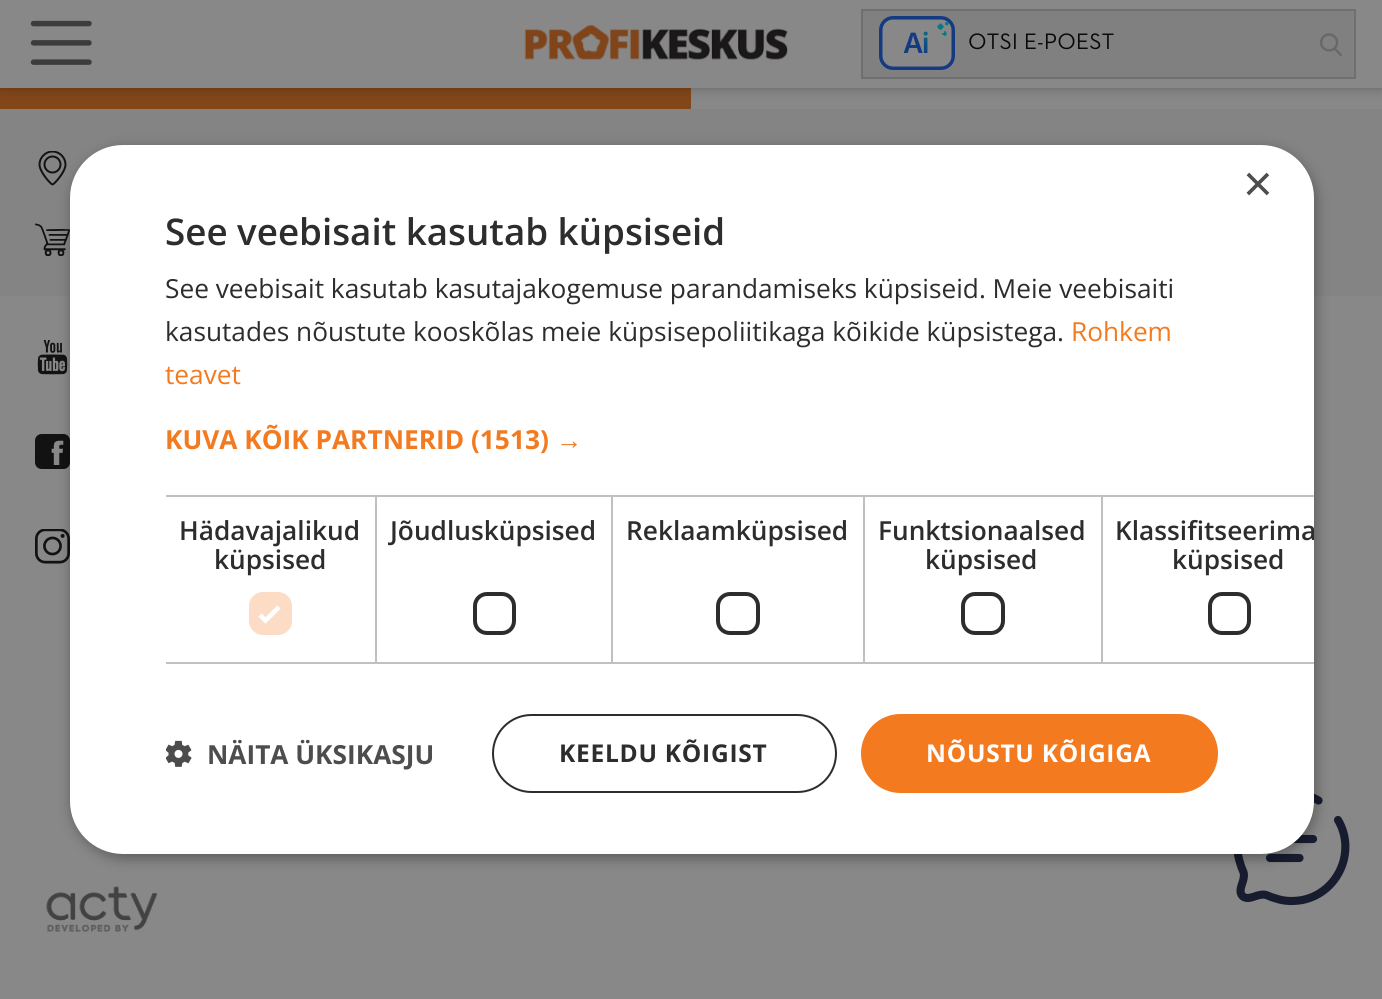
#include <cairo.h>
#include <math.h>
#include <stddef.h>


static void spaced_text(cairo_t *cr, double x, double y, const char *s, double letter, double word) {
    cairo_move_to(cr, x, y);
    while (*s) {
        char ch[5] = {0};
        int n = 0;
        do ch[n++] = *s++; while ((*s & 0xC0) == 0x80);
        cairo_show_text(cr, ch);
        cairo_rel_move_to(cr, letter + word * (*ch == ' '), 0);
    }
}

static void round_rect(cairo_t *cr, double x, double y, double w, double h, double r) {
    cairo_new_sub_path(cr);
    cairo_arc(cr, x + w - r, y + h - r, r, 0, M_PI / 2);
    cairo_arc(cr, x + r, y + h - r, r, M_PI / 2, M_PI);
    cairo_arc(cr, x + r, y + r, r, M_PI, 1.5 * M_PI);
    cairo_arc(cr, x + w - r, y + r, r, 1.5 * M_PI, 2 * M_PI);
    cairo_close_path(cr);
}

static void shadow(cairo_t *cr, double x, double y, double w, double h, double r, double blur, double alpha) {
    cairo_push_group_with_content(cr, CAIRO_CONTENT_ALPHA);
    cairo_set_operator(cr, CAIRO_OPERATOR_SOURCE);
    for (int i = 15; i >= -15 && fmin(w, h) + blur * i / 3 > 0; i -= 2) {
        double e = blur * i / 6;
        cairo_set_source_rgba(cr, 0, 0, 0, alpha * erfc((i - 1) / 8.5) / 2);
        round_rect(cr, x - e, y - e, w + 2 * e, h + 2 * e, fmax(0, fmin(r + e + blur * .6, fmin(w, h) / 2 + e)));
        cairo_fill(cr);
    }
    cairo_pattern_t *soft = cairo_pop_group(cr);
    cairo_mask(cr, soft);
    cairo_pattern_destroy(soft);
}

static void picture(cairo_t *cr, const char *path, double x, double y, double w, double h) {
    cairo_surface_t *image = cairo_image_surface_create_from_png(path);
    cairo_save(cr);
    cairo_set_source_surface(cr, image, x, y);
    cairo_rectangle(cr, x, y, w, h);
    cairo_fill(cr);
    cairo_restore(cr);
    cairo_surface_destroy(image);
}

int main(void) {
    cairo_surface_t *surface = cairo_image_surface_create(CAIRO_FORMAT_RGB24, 1382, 999);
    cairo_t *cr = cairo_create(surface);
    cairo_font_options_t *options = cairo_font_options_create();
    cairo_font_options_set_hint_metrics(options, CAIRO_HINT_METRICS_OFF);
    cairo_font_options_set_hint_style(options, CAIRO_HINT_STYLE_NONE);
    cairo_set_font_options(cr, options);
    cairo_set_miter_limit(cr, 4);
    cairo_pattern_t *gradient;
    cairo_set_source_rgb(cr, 0.533, 0.533, 0.533);
    cairo_paint(cr);
    cairo_set_source_rgb(cr, 0.51, 0.275, 0.094);
    cairo_rectangle(cr, 0, 88, 691, 21);
    cairo_fill(cr);
    cairo_set_source_rgb(cr, 0.035, 0.035, 0.035);
    shadow(cr, 0, 0, 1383, 88, 0, 6, 0.3);
    cairo_set_source_rgb(cr, 0.533, 0.533, 0.533);
    cairo_rectangle(cr, 0, 0, 1382, 88);
    cairo_fill(cr);
    picture(cr, "img1.png", 30, 20, 62, 45);
    picture(cr, "img2.png", 524, 24, 264, 36);
    cairo_set_source_rgb(cr, 0.502, 0.502, 0.502);
    cairo_rectangle(cr, 862, 10, 493, 68);
    cairo_fill_preserve(cr);
    cairo_set_source_rgb(cr, 0.435, 0.435, 0.435);
    cairo_stroke(cr);
    cairo_set_source_rgb(cr, 0.533, 0.533, 0.533);
    round_rect(cr, 880.75, 17.75, 72.5, 50.5, 12.25);
    cairo_fill_preserve(cr);
    cairo_set_source_rgb(cr, 0.082, 0.231, 0.51);
    cairo_set_line_width(cr, 3.5);
    cairo_stroke(cr);
    cairo_select_font_face(cr, "Inter SemiBold", CAIRO_FONT_SLANT_NORMAL, CAIRO_FONT_WEIGHT_NORMAL);
    cairo_set_font_size(cr, 28);
    cairo_move_to(cr, 903, 53);
    cairo_show_text(cr, "A");
    gradient = cairo_pattern_create_linear(922, 53, 931, 25);
    cairo_pattern_add_color_stop_rgba(gradient, 0, 0.082, 0.231, 0.51, 1);
    cairo_pattern_add_color_stop_rgba(gradient, 1, 0.035, 0.478, 0.522, 1);
    cairo_set_source(cr, gradient);
    cairo_pattern_destroy(gradient);
    cairo_move_to(cr, 922, 53);
    cairo_show_text(cr, "i");
    cairo_set_source_rgb(cr, 0.035, 0.478, 0.522);
    cairo_new_path(cr);
    cairo_move_to(cr, 941, 23.5);
    cairo_curve_to(cr, 943.5, 26, 945, 26, 942.5, 28.5);
    cairo_curve_to(cr, 940, 31, 940, 30, 937.5, 27.5);
    cairo_curve_to(cr, 936.5, 26.5, 938, 25.5, 938.5, 25);
    cairo_curve_to(cr, 939, 24.5, 940, 23, 941, 23.5);
    cairo_close_path(cr);
    cairo_fill(cr);
    round_rect(cr, 944, 31, 2, 5, 1);
    cairo_fill(cr);
    round_rect(cr, 942, 33, 5, 2, 1);
    cairo_fill(cr);
    cairo_arc(cr, 946.8, 23.6, 1.8, 0, 2 * M_PI);
    cairo_fill(cr);
    cairo_select_font_face(cr, "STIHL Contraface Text", CAIRO_FONT_SLANT_NORMAL, CAIRO_FONT_WEIGHT_NORMAL);
    cairo_set_font_size(cr, 22.75);
    cairo_set_source_rgb(cr, 0.035, 0.035, 0.035);
    cairo_move_to(cr, 968, 49);
    cairo_show_text(cr, "OTSI E-POEST");
    picture(cr, "img3.png", 1320, 33, 22, 23);
    cairo_set_source_rgb(cr, 0.518, 0.518, 0.518);
    cairo_rectangle(cr, 0, 109, 1382, 187);
    cairo_fill(cr);
    cairo_arc(cr, 52.5, 164.5, 8, 0, 2 * M_PI);
    cairo_set_source_rgb(cr, 0.075, 0.075, 0.075);
    cairo_set_line_width(cr, 2);
    cairo_stroke(cr);
    cairo_save(cr);
    cairo_rectangle(cr, 35, 151, 35, 35);
    cairo_clip(cr);
    cairo_new_path(cr);
    cairo_move_to(cr, 65.5, 164.5);
    cairo_curve_to(cr, 65.5, 157.5, 59.5, 151.5, 52.5, 151.5);
    cairo_curve_to(cr, 45.5, 151.5, 39.5, 157.5, 39.5, 164.5);
    cairo_curve_to(cr, 39.5, 172, 51, 184.5, 52.5, 184.5);
    cairo_curve_to(cr, 54, 184.5, 65.5, 172, 65.5, 164.5);
    cairo_close_path(cr);
    cairo_stroke(cr);
    cairo_restore(cr);
    picture(cr, "img4.png", 35, 223, 35, 33);
    picture(cr, "img5.png", 37, 340, 31, 35);
    picture(cr, "img6.png", 35, 434, 35, 35);
    picture(cr, "img7.png", 35, 529, 35, 35);
    picture(cr, "img8.png", 46, 886, 112, 46);
    cairo_new_path(cr);
    cairo_move_to(cr, 1270, 839);
    cairo_line_to(cr, 1313, 839);
    cairo_move_to(cr, 1270, 858);
    cairo_line_to(cr, 1299.5, 858);
    cairo_set_source_rgb(cr, 0.09, 0.11, 0.184);
    cairo_set_line_width(cr, 8.1);
    cairo_set_line_cap(cr, CAIRO_LINE_CAP_ROUND);
    cairo_stroke(cr);
    cairo_new_path(cr);
    cairo_move_to(cr, 1318.5, 800.5);
    cairo_curve_to(cr, 1287.5, 782, 1246, 800, 1238.5, 836);
    cairo_curve_to(cr, 1237, 845, 1237, 854, 1240, 862.5);
    cairo_curve_to(cr, 1242.5, 872.5, 1245.5, 871.5, 1243, 881);
    cairo_curve_to(cr, 1241.5, 886, 1238.5, 892, 1242.5, 896);
    cairo_curve_to(cr, 1246.5, 900, 1252.5, 897, 1257.5, 895.5);
    cairo_curve_to(cr, 1267, 893, 1266, 896, 1276, 898.5);
    cairo_curve_to(cr, 1284.5, 901.5, 1293.5, 901.5, 1302.5, 900);
    cairo_curve_to(cr, 1338.5, 892.5, 1356.5, 851, 1338, 820);
    cairo_stroke(cr);
    cairo_set_source_rgb(cr, 0, 0, 0);
    shadow(cr, 72, 149, 1244, 709, 53, 7, 0.35);
    cairo_set_source_rgb(cr, 1, 1, 1);
    round_rect(cr, 70, 145, 1244, 709, 53);
    cairo_fill(cr);
    cairo_select_font_face(cr, "Liberation Sans", CAIRO_FONT_SLANT_NORMAL, CAIRO_FONT_WEIGHT_NORMAL);
    cairo_set_font_size(cr, 51);
    cairo_set_source_rgb(cr, 0.302, 0.302, 0.302);
    cairo_move_to(cr, 1243, 201);
    cairo_show_text(cr, "×");
    cairo_select_font_face(cr, "Open Sans SemiBold", CAIRO_FONT_SLANT_NORMAL, CAIRO_FONT_WEIGHT_NORMAL);
    cairo_set_font_size(cr, 36.75);
    cairo_set_source_rgb(cr, 0.176, 0.176, 0.176);
    cairo_move_to(cr, 165, 245);
    cairo_show_text(cr, "See veebisait kasutab küpsiseid");
    cairo_select_font_face(cr, "Open Sans", CAIRO_FONT_SLANT_NORMAL, CAIRO_FONT_WEIGHT_NORMAL);
    cairo_set_font_size(cr, 26.25);
    cairo_move_to(cr, 165, 298);
    cairo_show_text(cr, "See veebisait kasutab kasutajakogemuse parandamiseks küpsiseid. Meie veebisaiti");
    cairo_move_to(cr, 165, 341);
    cairo_show_text(cr, "kasutades nõustute kooskõlas meie küpsisepoliitikaga kõikide küpsistega.");
    cairo_set_source_rgb(cr, 0.953, 0.478, 0.122);
    cairo_move_to(cr, 1071, 341);
    cairo_show_text(cr, "Rohkem");
    cairo_move_to(cr, 165, 384);
    cairo_show_text(cr, "teavet");
    cairo_select_font_face(cr, "Open Sans", CAIRO_FONT_SLANT_NORMAL, CAIRO_FONT_WEIGHT_BOLD);
    cairo_move_to(cr, 165, 449);
    cairo_show_text(cr, "KUVA KÕIK PARTNERID (1513)");
    cairo_select_font_face(cr, "Liberation Sans", CAIRO_FONT_SLANT_NORMAL, CAIRO_FONT_WEIGHT_BOLD);
    cairo_move_to(cr, 556, 449);
    cairo_show_text(cr, "→");
    cairo_set_source_rgb(cr, 0.753, 0.753, 0.753);
    cairo_rectangle(cr, 166, 495, 210, 2);
    cairo_fill(cr);
    cairo_rectangle(cr, 375, 495, 2, 168);
    cairo_fill(cr);
    cairo_rectangle(cr, 166, 662, 210, 2);
    cairo_fill(cr);
    cairo_select_font_face(cr, "Open Sans SemiBold", CAIRO_FONT_SLANT_NORMAL, CAIRO_FONT_WEIGHT_NORMAL);
    cairo_set_source_rgb(cr, 0.176, 0.176, 0.176);
    cairo_move_to(cr, 179, 540);
    cairo_show_text(cr, "Hädavajalikud");
    cairo_move_to(cr, 214, 569);
    cairo_show_text(cr, "küpsised");
    cairo_set_source_rgb(cr, 0.988, 0.863, 0.773);
    round_rect(cr, 249, 592, 43, 43, 14);
    cairo_fill(cr);
    cairo_new_path(cr);
    cairo_move_to(cr, 260, 615);
    cairo_line_to(cr, 265.5, 620.5);
    cairo_line_to(cr, 279, 607);
    cairo_set_source_rgb(cr, 1, 1, 1);
    cairo_set_line_width(cr, 4.6);
    cairo_set_line_cap(cr, CAIRO_LINE_CAP_BUTT);
    cairo_stroke(cr);
    cairo_set_source_rgb(cr, 0.753, 0.753, 0.753);
    cairo_rectangle(cr, 376, 495, 938, 2);
    cairo_fill(cr);
    cairo_rectangle(cr, 611, 495, 2, 168);
    cairo_fill(cr);
    cairo_rectangle(cr, 376, 662, 237, 2);
    cairo_fill(cr);
    cairo_set_source_rgb(cr, 0.176, 0.176, 0.176);
    cairo_move_to(cr, 390, 540);
    cairo_show_text(cr, "Jõudlusküpsised");
    round_rect(cr, 475, 594, 39, 39, 12);
    cairo_set_line_width(cr, 4);
    cairo_stroke(cr);
    cairo_set_source_rgb(cr, 0.753, 0.753, 0.753);
    cairo_rectangle(cr, 863, 495, 2, 168);
    cairo_fill(cr);
    cairo_rectangle(cr, 613, 662, 252, 2);
    cairo_fill(cr);
    cairo_set_source_rgb(cr, 0.176, 0.176, 0.176);
    cairo_move_to(cr, 626, 540);
    cairo_show_text(cr, "Reklaamküpsised");
    round_rect(cr, 718, 594, 40, 39, 12);
    cairo_stroke(cr);
    cairo_set_source_rgb(cr, 0.753, 0.753, 0.753);
    cairo_rectangle(cr, 1101, 495, 2, 168);
    cairo_fill(cr);
    cairo_rectangle(cr, 865, 662, 449, 2);
    cairo_fill(cr);
    cairo_set_source_rgb(cr, 0.176, 0.176, 0.176);
    cairo_move_to(cr, 878, 540);
    cairo_show_text(cr, "Funktsionaalsed");
    cairo_move_to(cr, 925, 569);
    cairo_show_text(cr, "küpsised");
    round_rect(cr, 963, 594, 40, 39, 12);
    cairo_stroke(cr);
    cairo_save(cr);
    round_rect(cr, 70, 145, 1244, 709, 53);
    cairo_clip(cr);
    cairo_move_to(cr, 1115, 540);
    cairo_show_text(cr, "Klassifitseerima");
    cairo_restore(cr);
    cairo_move_to(cr, 1172, 569);
    cairo_show_text(cr, "küpsised");
    round_rect(cr, 1210, 594, 39, 39, 12);
    cairo_stroke(cr);
    picture(cr, "img9.png", 166, 740, 26, 27);
    cairo_select_font_face(cr, "Open Sans", CAIRO_FONT_SLANT_NORMAL, CAIRO_FONT_WEIGHT_BOLD);
    cairo_set_source_rgb(cr, 0.302, 0.302, 0.302);
    cairo_move_to(cr, 207, 764);
    cairo_show_text(cr, "NÄITA ÜKSIKASJU");
    round_rect(cr, 493, 715, 343, 77, 38.5);
    cairo_set_source_rgb(cr, 0.176, 0.176, 0.176);
    cairo_set_line_width(cr, 2);
    cairo_stroke(cr);
    cairo_set_font_size(cr, 24.5);
    spaced_text(cr, 559, 762, "KEELDU KÕIGIST", 0.75, 0);
    cairo_set_source_rgb(cr, 0.953, 0.478, 0.122);
    round_rect(cr, 861, 714, 357, 79, 39.5);
    cairo_fill(cr);
    cairo_set_source_rgb(cr, 1, 1, 1);
    spaced_text(cr, 926, 762, "NÕUSTU KÕIGIGA", 0.75, 0);
    cairo_surface_write_to_png(surface, "page.png");
    cairo_font_options_destroy(options);
    cairo_destroy(cr);
    cairo_surface_destroy(surface);
    return 0;
}
